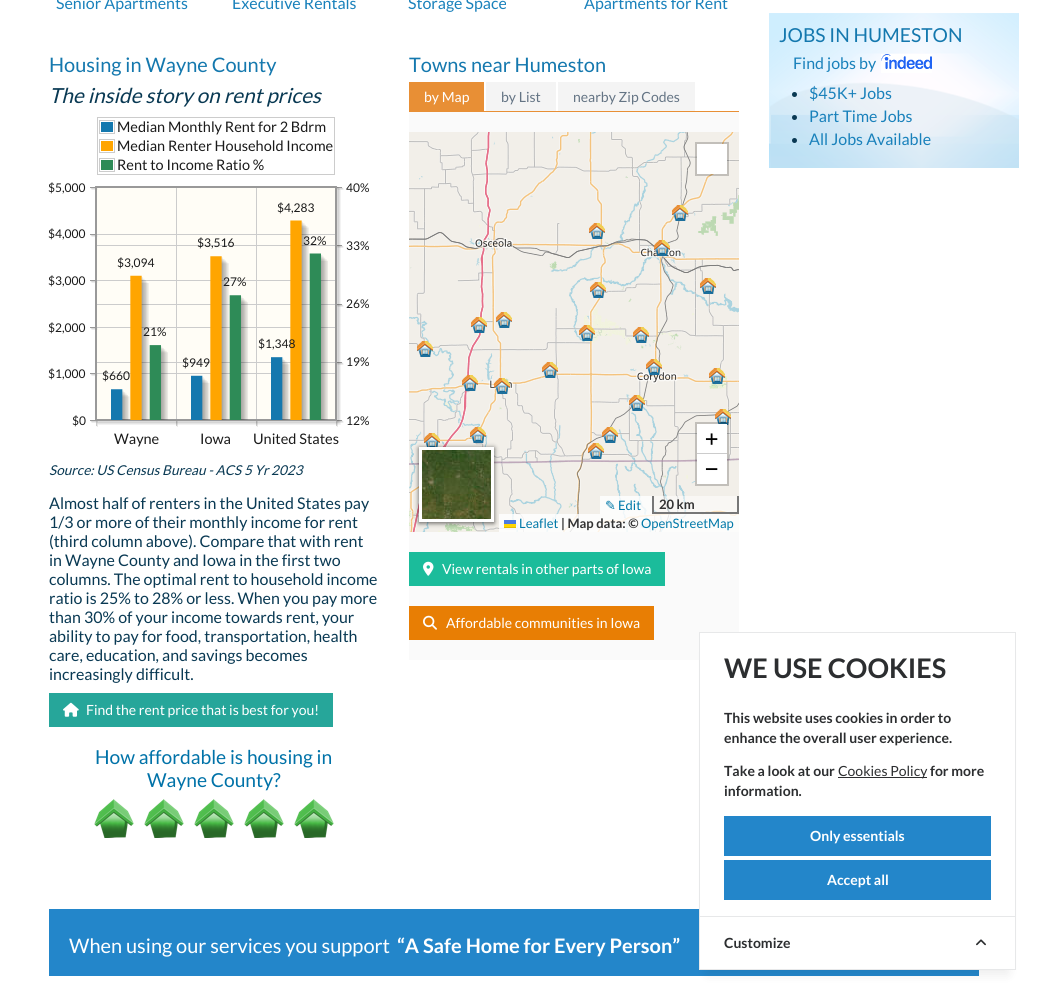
#include <cairo.h>
#include <math.h>
#include <stddef.h>


static void round_rect(cairo_t *cr, double x, double y, double w, double h, double r) {
    cairo_new_sub_path(cr);
    cairo_arc(cr, x + w - r, y + h - r, r, 0, M_PI / 2);
    cairo_arc(cr, x + r, y + h - r, r, M_PI / 2, M_PI);
    cairo_arc(cr, x + r, y + r, r, M_PI, 1.5 * M_PI);
    cairo_arc(cr, x + w - r, y + r, r, 1.5 * M_PI, 2 * M_PI);
    cairo_close_path(cr);
}

static void shadow(cairo_t *cr, double x, double y, double w, double h, double r, double blur, double alpha) {
    cairo_push_group_with_content(cr, CAIRO_CONTENT_ALPHA);
    cairo_set_operator(cr, CAIRO_OPERATOR_SOURCE);
    for (int i = 15; i >= -15 && fmin(w, h) + blur * i / 3 > 0; i -= 2) {
        double e = blur * i / 6;
        cairo_set_source_rgba(cr, 0, 0, 0, alpha * erfc((i - 1) / 8.5) / 2);
        round_rect(cr, x - e, y - e, w + 2 * e, h + 2 * e, fmax(0, fmin(r + e + blur * .6, fmin(w, h) / 2 + e)));
        cairo_fill(cr);
    }
    cairo_pattern_t *soft = cairo_pop_group(cr);
    cairo_mask(cr, soft);
    cairo_pattern_destroy(soft);
}

static void picture(cairo_t *cr, const char *path, double x, double y, double w, double h) {
    cairo_surface_t *image = cairo_image_surface_create_from_png(path);
    cairo_save(cr);
    cairo_set_source_surface(cr, image, x, y);
    cairo_rectangle(cr, x, y, w, h);
    cairo_fill(cr);
    cairo_restore(cr);
    cairo_surface_destroy(image);
}

int main(void) {
    cairo_surface_t *surface = cairo_image_surface_create(CAIRO_FORMAT_RGB24, 1037, 984);
    cairo_t *cr = cairo_create(surface);
    cairo_font_options_t *options = cairo_font_options_create();
    cairo_font_options_set_hint_metrics(options, CAIRO_HINT_METRICS_OFF);
    cairo_font_options_set_hint_style(options, CAIRO_HINT_STYLE_NONE);
    cairo_set_font_options(cr, options);
    cairo_set_miter_limit(cr, 4);
    cairo_set_source_rgb(cr, 1, 1, 1);
    cairo_paint(cr);
    cairo_select_font_face(cr, "Lato", CAIRO_FONT_SLANT_NORMAL, CAIRO_FONT_WEIGHT_NORMAL);
    cairo_set_font_size(cr, 16);
    cairo_set_source_rgb(cr, 0.098, 0.506, 0.733);
    cairo_move_to(cr, 56, 9);
    cairo_show_text(cr, "Senior Apartments");
    cairo_move_to(cr, 232, 9);
    cairo_show_text(cr, "Executive Rentals");
    cairo_move_to(cr, 408, 9);
    cairo_show_text(cr, "Storage Space");
    cairo_move_to(cr, 584, 9);
    cairo_show_text(cr, "Apartments for Rent");
    cairo_set_font_size(cr, 20);
    cairo_set_source_rgb(cr, 0.082, 0.471, 0.682);
    cairo_move_to(cr, 49, 72);
    cairo_show_text(cr, "Housing in Wayne County");
    cairo_select_font_face(cr, "Lato", CAIRO_FONT_SLANT_ITALIC, CAIRO_FONT_WEIGHT_NORMAL);
    cairo_set_font_size(cr, 20.75);
    cairo_set_source_rgb(cr, 0.039, 0.224, 0.325);
    cairo_move_to(cr, 49, 103);
    cairo_show_text(cr, "The inside story on rent prices");
    cairo_set_source_rgb(cr, 0.8, 0.8, 0.8);
    cairo_rectangle(cr, 97, 117, 238, 1);
    cairo_fill(cr);
    cairo_rectangle(cr, 334, 117, 1, 58);
    cairo_fill(cr);
    cairo_rectangle(cr, 97, 174, 238, 1);
    cairo_fill(cr);
    cairo_rectangle(cr, 97, 117, 1, 58);
    cairo_fill(cr);
    cairo_rectangle(cr, 99.5, 120.5, 15, 13);
    cairo_set_line_width(cr, 1);
    cairo_stroke(cr);
    cairo_set_source_rgb(cr, 0.082, 0.471, 0.682);
    cairo_rectangle(cr, 101, 122, 12, 5);
    cairo_fill(cr);
    cairo_rectangle(cr, 107, 122, 6, 10);
    cairo_fill(cr);
    cairo_rectangle(cr, 101, 127, 12, 5);
    cairo_fill(cr);
    cairo_select_font_face(cr, "Lato", CAIRO_FONT_SLANT_NORMAL, CAIRO_FONT_WEIGHT_NORMAL);
    cairo_set_font_size(cr, 14.5);
    cairo_set_source_rgb(cr, 0.102, 0.102, 0.102);
    cairo_move_to(cr, 117, 132);
    cairo_show_text(cr, "Median Monthly Rent for 2 Bdrm");
    cairo_rectangle(cr, 99.5, 139.5, 15, 13);
    cairo_set_source_rgb(cr, 0.8, 0.8, 0.8);
    cairo_stroke(cr);
    cairo_set_source_rgb(cr, 1, 0.647, 0);
    cairo_rectangle(cr, 101, 141, 12, 5);
    cairo_fill(cr);
    cairo_rectangle(cr, 107, 141, 6, 10);
    cairo_fill(cr);
    cairo_rectangle(cr, 101, 146, 12, 5);
    cairo_fill(cr);
    cairo_set_source_rgb(cr, 0.102, 0.102, 0.102);
    cairo_move_to(cr, 117, 151);
    cairo_show_text(cr, "Median Renter Household Income");
    cairo_rectangle(cr, 99.5, 158.5, 15, 13);
    cairo_set_source_rgb(cr, 0.8, 0.8, 0.8);
    cairo_stroke(cr);
    cairo_set_source_rgb(cr, 0.18, 0.545, 0.341);
    cairo_rectangle(cr, 101, 160, 12, 5);
    cairo_fill(cr);
    cairo_rectangle(cr, 107, 160, 6, 10);
    cairo_fill(cr);
    cairo_rectangle(cr, 101, 165, 12, 5);
    cairo_fill(cr);
    cairo_set_source_rgb(cr, 0.102, 0.102, 0.102);
    cairo_move_to(cr, 117, 170);
    cairo_show_text(cr, "Rent to Income Ratio %");
    cairo_set_font_size(cr, 12);
    cairo_move_to(cr, 48, 192);
    cairo_show_text(cr, "$5,000");
    cairo_move_to(cr, 48, 238);
    cairo_show_text(cr, "$4,000");
    cairo_move_to(cr, 48, 285);
    cairo_show_text(cr, "$3,000");
    cairo_move_to(cr, 48, 332);
    cairo_show_text(cr, "$2,000");
    cairo_move_to(cr, 48, 378);
    cairo_show_text(cr, "$1,000");
    cairo_move_to(cr, 72, 425);
    cairo_show_text(cr, "$0");
    picture(cr, "img1.png", 90, 186, 254, 241);
    cairo_move_to(cr, 346, 192);
    cairo_show_text(cr, "40%");
    cairo_move_to(cr, 346, 250);
    cairo_show_text(cr, "33%");
    cairo_move_to(cr, 346, 308);
    cairo_show_text(cr, "26%");
    cairo_move_to(cr, 346, 366);
    cairo_show_text(cr, "19%");
    cairo_move_to(cr, 346, 425);
    cairo_show_text(cr, "12%");
    cairo_move_to(cr, 277, 212);
    cairo_show_text(cr, "$4,283");
    picture(cr, "img4.png", 111, 357, 179, 63);
    picture(cr, "img2.png", 130, 220, 179, 200);
    cairo_move_to(cr, 303, 245);
    cairo_show_text(cr, "32%");
    cairo_move_to(cr, 197, 247);
    cairo_show_text(cr, "$3,516");
    picture(cr, "img3.png", 149, 253, 179, 167);
    cairo_move_to(cr, 117, 267);
    cairo_show_text(cr, "$3,094");
    cairo_move_to(cr, 223, 286);
    cairo_show_text(cr, "27%");
    cairo_move_to(cr, 143, 336);
    cairo_show_text(cr, "21%");
    cairo_move_to(cr, 258, 348);
    cairo_show_text(cr, "$1,348");
    cairo_move_to(cr, 182, 367);
    cairo_show_text(cr, "$949");
    cairo_move_to(cr, 102, 380);
    cairo_show_text(cr, "$660");
    cairo_set_font_size(cr, 14.5);
    cairo_move_to(cr, 114, 444);
    cairo_show_text(cr, "Wayne");
    cairo_move_to(cr, 200, 444);
    cairo_show_text(cr, "Iowa");
    cairo_move_to(cr, 253, 444);
    cairo_show_text(cr, "United States");
    cairo_select_font_face(cr, "Lato", CAIRO_FONT_SLANT_ITALIC, CAIRO_FONT_WEIGHT_NORMAL);
    cairo_set_font_size(cr, 13.6);
    cairo_set_source_rgb(cr, 0.039, 0.224, 0.325);
    cairo_move_to(cr, 49, 475);
    cairo_show_text(cr, "Source: US Census Bureau - ACS 5 Yr 2023");
    cairo_select_font_face(cr, "Lato", CAIRO_FONT_SLANT_NORMAL, CAIRO_FONT_WEIGHT_NORMAL);
    cairo_set_font_size(cr, 16);
    cairo_move_to(cr, 49, 509);
    cairo_show_text(cr, "Almost half of renters in the United States pay");
    cairo_move_to(cr, 49, 528);
    cairo_show_text(cr, "1/3 or more of their monthly income for rent");
    cairo_move_to(cr, 49, 547);
    cairo_show_text(cr, "(third column above). Compare that with rent");
    cairo_move_to(cr, 49, 566);
    cairo_show_text(cr, "in Wayne County and Iowa in the first two");
    cairo_move_to(cr, 49, 585);
    cairo_show_text(cr, "columns. The optimal rent to household income");
    cairo_move_to(cr, 49, 604);
    cairo_show_text(cr, "ratio is 25% to 28% or less. When you pay more");
    cairo_move_to(cr, 49, 623);
    cairo_show_text(cr, "than 30% of your income towards rent, your");
    cairo_move_to(cr, 49, 642);
    cairo_show_text(cr, "ability to pay for food, transportation, health");
    cairo_move_to(cr, 49, 661);
    cairo_show_text(cr, "care, education, and savings becomes");
    cairo_move_to(cr, 49, 680);
    cairo_show_text(cr, "increasingly difficult.");
    cairo_set_source_rgb(cr, 0.149, 0.651, 0.604);
    cairo_rectangle(cr, 49, 693, 284, 34);
    cairo_fill(cr);
    picture(cr, "img5.png", 63, 702, 16, 15);
    cairo_set_font_size(cr, 14);
    cairo_set_source_rgb(cr, 1, 1, 1);
    cairo_move_to(cr, 86, 715);
    cairo_show_text(cr, "Find the rent price that is best for you!");
    cairo_set_font_size(cr, 19.25);
    cairo_set_source_rgb(cr, 0, 0.447, 0.659);
    cairo_move_to(cr, 95, 764);
    cairo_show_text(cr, "How affordable is housing in");
    cairo_move_to(cr, 147, 787);
    cairo_show_text(cr, "Wayne County?");
    picture(cr, "img6.png", 94, 799, 240, 39);
    cairo_set_font_size(cr, 20);
    cairo_set_source_rgb(cr, 0.082, 0.471, 0.682);
    cairo_move_to(cr, 409, 72);
    cairo_show_text(cr, "Towns near Humeston");
    cairo_set_source_rgb(cr, 0.91, 0.561, 0.208);
    cairo_rectangle(cr, 409, 111, 330, 1);
    cairo_fill(cr);
    cairo_rectangle(cr, 409, 82, 75, 29);
    cairo_fill(cr);
    cairo_set_font_size(cr, 14);
    cairo_set_source_rgb(cr, 1, 1, 1);
    cairo_move_to(cr, 424, 102);
    cairo_show_text(cr, "by Map");
    cairo_set_source_rgb(cr, 0.957, 0.957, 0.957);
    cairo_rectangle(cr, 486, 82, 70, 29);
    cairo_fill(cr);
    cairo_set_source_rgb(cr, 0.392, 0.455, 0.518);
    cairo_move_to(cr, 501, 102);
    cairo_show_text(cr, "by List");
    cairo_set_source_rgb(cr, 0.957, 0.957, 0.957);
    cairo_rectangle(cr, 558, 82, 137, 29);
    cairo_fill(cr);
    cairo_set_source_rgb(cr, 0.392, 0.455, 0.518);
    cairo_move_to(cr, 573, 102);
    cairo_show_text(cr, "nearby Zip Codes");
    cairo_set_source_rgb(cr, 0.98, 0.98, 0.98);
    cairo_rectangle(cr, 409, 112, 330, 548);
    cairo_fill(cr);
    picture(cr, "img7.png", 409, 132, 176, 137);
    picture(cr, "img8.png", 585, 132, 154, 137);
    picture(cr, "img9.png", 409, 269, 176, 256);
    picture(cr, "img10.png", 585, 269, 154, 256);
    picture(cr, "img11.png", 409, 525, 176, 7);
    picture(cr, "img12.png", 585, 525, 154, 7);
    picture(cr, "img13.png", 672, 205, 16, 16);
    picture(cr, "img14.png", 589, 223, 16, 16);
    picture(cr, "img15.png", 654, 240, 16, 16);
    picture(cr, "img16.png", 590, 282, 16, 16);
    picture(cr, "img17.png", 700, 278, 16, 16);
    picture(cr, "img18.png", 471, 317, 16, 16);
    picture(cr, "img19.png", 496, 312, 16, 16);
    picture(cr, "img20.png", 579, 325, 16, 16);
    picture(cr, "img21.png", 633, 327, 16, 16);
    picture(cr, "img22.png", 417, 341, 16, 16);
    picture(cr, "img23.png", 462, 375, 16, 16);
    picture(cr, "img24.png", 494, 378, 16, 16);
    picture(cr, "img25.png", 542, 362, 16, 16);
    picture(cr, "img26.png", 646, 359, 16, 16);
    picture(cr, "img27.png", 709, 368, 16, 16);
    picture(cr, "img28.png", 629, 395, 16, 16);
    picture(cr, "img29.png", 715, 409, 16, 16);
    picture(cr, "img30.png", 424, 433, 16, 14);
    picture(cr, "img31.png", 470, 427, 16, 16);
    picture(cr, "img32.png", 602, 427, 16, 16);
    picture(cr, "img33.png", 588, 443, 16, 16);
    cairo_rectangle(cr, 696, 143, 32, 32);
    cairo_set_source_rgba(cr, 0, 0, 0, 0.2);
    cairo_set_line_width(cr, 2);
    cairo_stroke(cr);
    cairo_set_source_rgb(cr, 1, 1, 1);
    cairo_rectangle(cr, 697, 144, 30, 30);
    cairo_fill(cr);
    cairo_set_source_rgb(cr, 0, 0, 0);
    shadow(cr, 419, 448, 75, 75, 0, 2.5, 0.65);
    cairo_rectangle(cr, 420.5, 448.5, 72, 72);
    cairo_set_source_rgb(cr, 1, 1, 1);
    cairo_set_line_width(cr, 3);
    cairo_stroke(cr);
    picture(cr, "img34.png", 422, 450, 69, 36);
    picture(cr, "img35.png", 422, 486, 69, 33);
    cairo_rectangle(cr, 696, 423, 32, 62);
    cairo_set_source_rgba(cr, 0, 0, 0, 0.2);
    cairo_set_line_width(cr, 2);
    cairo_stroke(cr);
    cairo_set_source_rgb(cr, 1, 1, 1);
    cairo_rectangle(cr, 697, 424, 30, 29);
    cairo_fill(cr);
    cairo_set_source_rgb(cr, 0.8, 0.8, 0.8);
    cairo_rectangle(cr, 697, 453, 30, 1);
    cairo_fill(cr);
    cairo_select_font_face(cr, "DejaVu Sans Mono", CAIRO_FONT_SLANT_NORMAL, CAIRO_FONT_WEIGHT_NORMAL);
    cairo_set_font_size(cr, 22);
    cairo_set_source_rgb(cr, 0, 0, 0);
    cairo_move_to(cr, 705, 446);
    cairo_show_text(cr, "+");
    cairo_set_source_rgb(cr, 1, 1, 1);
    cairo_rectangle(cr, 697, 454, 30, 30);
    cairo_fill(cr);
    cairo_set_source_rgb(cr, 0, 0, 0);
    cairo_move_to(cr, 705, 476);
    cairo_show_text(cr, "−");
    cairo_set_source_rgba(cr, 1, 1, 1, 0.8);
    cairo_rectangle(cr, 600, 496, 52, 18);
    cairo_fill(cr);
    cairo_select_font_face(cr, "DejaVu Sans", CAIRO_FONT_SLANT_NORMAL, CAIRO_FONT_WEIGHT_NORMAL);
    cairo_set_font_size(cr, 13);
    cairo_set_source_rgb(cr, 0, 0.471, 0.659);
    cairo_move_to(cr, 605, 510);
    cairo_show_text(cr, "✎");
    cairo_select_font_face(cr, "Lato", CAIRO_FONT_SLANT_NORMAL, CAIRO_FONT_WEIGHT_NORMAL);
    cairo_move_to(cr, 618, 510);
    cairo_show_text(cr, "Edit");
    cairo_set_source_rgba(cr, 1, 1, 1, 0.5);
    cairo_rectangle(cr, 654, 496, 83, 16);
    cairo_fill(cr);
    cairo_set_source_rgb(cr, 0.467, 0.467, 0.467);
    cairo_rectangle(cr, 737, 496, 2, 18);
    cairo_fill(cr);
    cairo_rectangle(cr, 652, 512, 87, 2);
    cairo_fill(cr);
    cairo_rectangle(cr, 652, 496, 2, 18);
    cairo_fill(cr);
    cairo_select_font_face(cr, "Lato", CAIRO_FONT_SLANT_NORMAL, CAIRO_FONT_WEIGHT_BOLD);
    cairo_set_source_rgb(cr, 0.2, 0.2, 0.2);
    cairo_move_to(cr, 659, 509);
    cairo_show_text(cr, "20 km");
    cairo_set_source_rgba(cr, 1, 1, 1, 0.8);
    cairo_rectangle(cr, 499, 514, 240, 18);
    cairo_fill(cr);
    cairo_select_font_face(cr, "Lato", CAIRO_FONT_SLANT_NORMAL, CAIRO_FONT_WEIGHT_NORMAL);
    cairo_set_source_rgb(cr, 0, 0.471, 0.659);
    cairo_move_to(cr, 519, 528);
    cairo_show_text(cr, "Leaflet");
    cairo_set_source_rgb(cr, 0.298, 0.482, 0.882);
    cairo_rectangle(cr, 504, 520, 12, 4);
    cairo_fill(cr);
    cairo_set_source_rgb(cr, 1, 0.835, 0);
    cairo_rectangle(cr, 504, 524, 12, 3);
    cairo_fill(cr);
    cairo_set_source_rgb(cr, 0.878, 0.737, 0);
    cairo_rectangle(cr, 504, 527, 12, 1);
    cairo_fill(cr);
    cairo_select_font_face(cr, "Lato", CAIRO_FONT_SLANT_NORMAL, CAIRO_FONT_WEIGHT_BOLD);
    cairo_set_source_rgb(cr, 0.2, 0.2, 0.2);
    cairo_move_to(cr, 561, 528);
    cairo_show_text(cr, "| Map data: ©");
    cairo_select_font_face(cr, "Lato", CAIRO_FONT_SLANT_NORMAL, CAIRO_FONT_WEIGHT_NORMAL);
    cairo_set_source_rgb(cr, 0, 0.471, 0.659);
    cairo_move_to(cr, 641, 528);
    cairo_show_text(cr, "OpenStreetMap");
    cairo_set_source_rgb(cr, 0.106, 0.737, 0.608);
    cairo_rectangle(cr, 409, 552, 256, 34);
    cairo_fill(cr);
    picture(cr, "img36.png", 423, 561, 11, 15);
    cairo_set_font_size(cr, 14);
    cairo_set_source_rgb(cr, 1, 1, 1);
    cairo_move_to(cr, 442, 574);
    cairo_show_text(cr, "View rentals in other parts of Iowa");
    cairo_set_source_rgb(cr, 0.91, 0.494, 0.016);
    cairo_rectangle(cr, 409, 606, 245, 34);
    cairo_fill(cr);
    picture(cr, "img37.png", 423, 615, 14, 15);
    cairo_set_source_rgb(cr, 1, 1, 1);
    cairo_move_to(cr, 446, 628);
    cairo_show_text(cr, "Affordable communities in Iowa");
    picture(cr, "img38.png", 769, 13, 250, 155);
    cairo_set_font_size(cr, 19.25);
    cairo_set_source_rgb(cr, 0.082, 0.471, 0.682);
    cairo_move_to(cr, 779, 42);
    cairo_show_text(cr, "JOBS IN HUMESTON");
    picture(cr, "img39.png", 881, 54, 51, 19);
    cairo_set_font_size(cr, 16);
    cairo_set_source_rgb(cr, 0.098, 0.506, 0.733);
    cairo_move_to(cr, 793, 69);
    cairo_show_text(cr, "Find jobs by");
    cairo_set_source_rgb(cr, 0.039, 0.224, 0.325);
    cairo_new_path(cr);
    cairo_arc(cr, 794.5, 94.5, 2.5, 0, 2 * M_PI);
    cairo_fill(cr);
    cairo_set_source_rgb(cr, 0.098, 0.506, 0.733);
    cairo_move_to(cr, 809, 99);
    cairo_show_text(cr, "$45K+ Jobs");
    cairo_set_source_rgb(cr, 0.039, 0.224, 0.325);
    cairo_new_path(cr);
    cairo_arc(cr, 794.5, 117.5, 2.5, 0, 2 * M_PI);
    cairo_fill(cr);
    cairo_set_source_rgb(cr, 0.098, 0.506, 0.733);
    cairo_move_to(cr, 809, 122);
    cairo_show_text(cr, "Part Time Jobs");
    cairo_set_source_rgb(cr, 0.039, 0.224, 0.325);
    cairo_new_path(cr);
    cairo_arc(cr, 794.5, 140.5, 2.5, 0, 2 * M_PI);
    cairo_fill(cr);
    cairo_set_source_rgb(cr, 0.098, 0.506, 0.733);
    cairo_move_to(cr, 809, 145);
    cairo_show_text(cr, "All Jobs Available");
    cairo_set_source_rgb(cr, 0.137, 0.525, 0.792);
    cairo_rectangle(cr, 49, 909, 930, 67);
    cairo_fill(cr);
    cairo_set_font_size(cr, 20);
    cairo_set_source_rgb(cr, 1, 1, 1);
    cairo_move_to(cr, 69, 953);
    cairo_show_text(cr, "When using our services you support");
    cairo_select_font_face(cr, "Lato", CAIRO_FONT_SLANT_NORMAL, CAIRO_FONT_WEIGHT_BOLD);
    cairo_move_to(cr, 397, 953);
    cairo_show_text(cr, "“A Safe Home for Every Person”");
    cairo_set_source_rgb(cr, 0, 0, 0);
    shadow(cr, 707, 652, 301, 322, 0, 6, 0.08);
    cairo_set_source_rgb(cr, 1, 1, 1);
    cairo_rectangle(cr, 699.5, 632.5, 316, 337);
    cairo_fill_preserve(cr);
    cairo_set_source_rgb(cr, 0.906, 0.91, 0.914);
    cairo_set_line_width(cr, 1);
    cairo_stroke(cr);
    cairo_set_font_size(cr, 27);
    cairo_set_source_rgb(cr, 0.173, 0.18, 0.188);
    cairo_move_to(cr, 724, 678);
    cairo_show_text(cr, "WE USE COOKIES");
    cairo_set_font_size(cr, 14);
    cairo_move_to(cr, 724, 723);
    cairo_show_text(cr, "This website uses cookies in order to");
    cairo_move_to(cr, 724, 743);
    cairo_show_text(cr, "enhance the overall user experience.");
    cairo_move_to(cr, 724, 776);
    cairo_show_text(cr, "Take a look at our");
    cairo_rectangle(cr, 838, 777, 89, 1);
    cairo_fill(cr);
    cairo_select_font_face(cr, "Lato", CAIRO_FONT_SLANT_NORMAL, CAIRO_FONT_WEIGHT_NORMAL);
    cairo_move_to(cr, 838, 776);
    cairo_show_text(cr, "Cookies Policy");
    cairo_select_font_face(cr, "Lato", CAIRO_FONT_SLANT_NORMAL, CAIRO_FONT_WEIGHT_BOLD);
    cairo_move_to(cr, 930, 776);
    cairo_show_text(cr, "for more");
    cairo_move_to(cr, 724, 796);
    cairo_show_text(cr, "information.");
    cairo_set_source_rgb(cr, 0.137, 0.525, 0.792);
    cairo_rectangle(cr, 724, 816, 267, 40);
    cairo_fill(cr);
    cairo_set_source_rgb(cr, 1, 1, 1);
    cairo_move_to(cr, 810, 841);
    cairo_show_text(cr, "Only essentials");
    cairo_set_source_rgb(cr, 0.137, 0.525, 0.792);
    cairo_rectangle(cr, 724, 860, 267, 40);
    cairo_fill(cr);
    cairo_set_source_rgb(cr, 1, 1, 1);
    cairo_move_to(cr, 827, 885);
    cairo_show_text(cr, "Accept all");
    cairo_set_source_rgb(cr, 0.906, 0.91, 0.914);
    cairo_rectangle(cr, 700, 916, 315, 1);
    cairo_fill(cr);
    cairo_set_source_rgb(cr, 0.173, 0.18, 0.188);
    cairo_move_to(cr, 724, 948);
    cairo_show_text(cr, "Customize");
    picture(cr, "img40.png", 976, 939, 10, 7);
    cairo_surface_write_to_png(surface, "page.png");
    cairo_font_options_destroy(options);
    cairo_destroy(cr);
    cairo_surface_destroy(surface);
    return 0;
}
